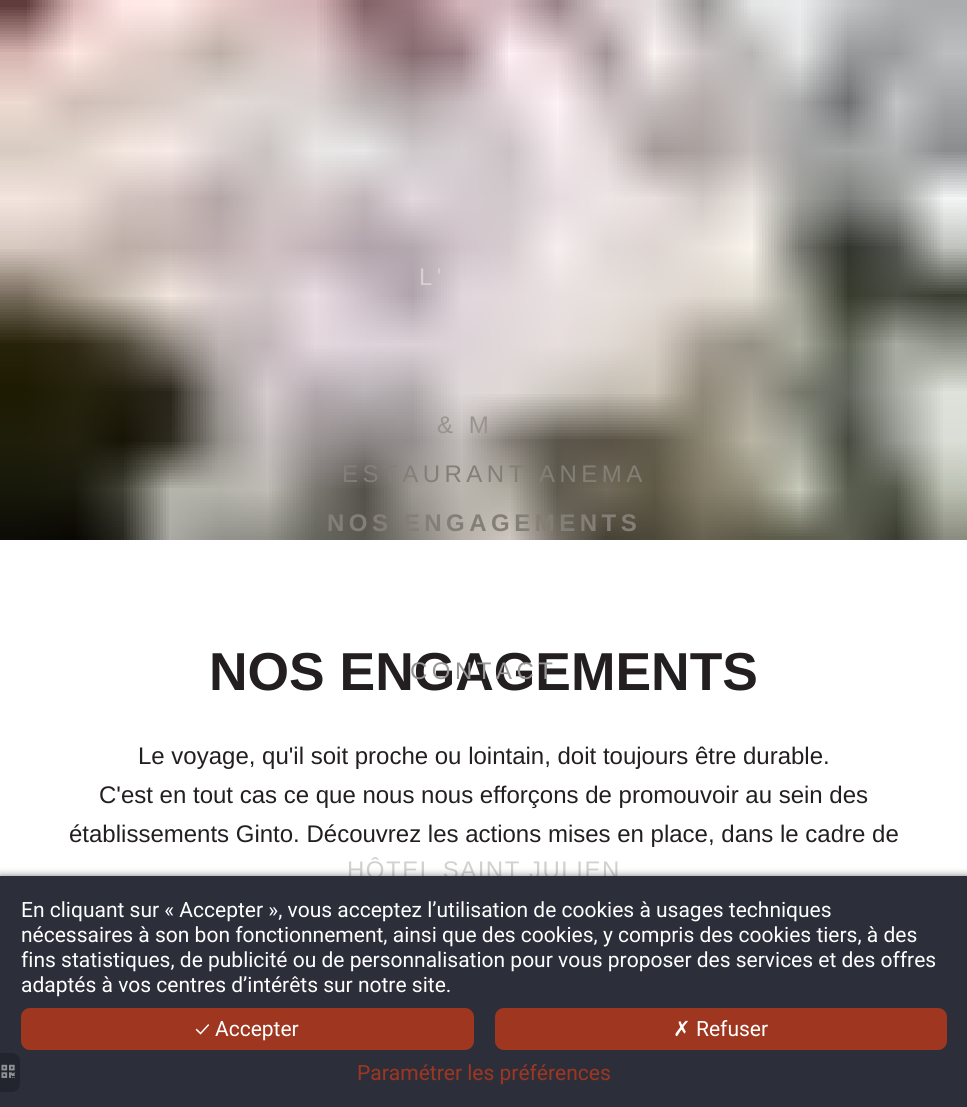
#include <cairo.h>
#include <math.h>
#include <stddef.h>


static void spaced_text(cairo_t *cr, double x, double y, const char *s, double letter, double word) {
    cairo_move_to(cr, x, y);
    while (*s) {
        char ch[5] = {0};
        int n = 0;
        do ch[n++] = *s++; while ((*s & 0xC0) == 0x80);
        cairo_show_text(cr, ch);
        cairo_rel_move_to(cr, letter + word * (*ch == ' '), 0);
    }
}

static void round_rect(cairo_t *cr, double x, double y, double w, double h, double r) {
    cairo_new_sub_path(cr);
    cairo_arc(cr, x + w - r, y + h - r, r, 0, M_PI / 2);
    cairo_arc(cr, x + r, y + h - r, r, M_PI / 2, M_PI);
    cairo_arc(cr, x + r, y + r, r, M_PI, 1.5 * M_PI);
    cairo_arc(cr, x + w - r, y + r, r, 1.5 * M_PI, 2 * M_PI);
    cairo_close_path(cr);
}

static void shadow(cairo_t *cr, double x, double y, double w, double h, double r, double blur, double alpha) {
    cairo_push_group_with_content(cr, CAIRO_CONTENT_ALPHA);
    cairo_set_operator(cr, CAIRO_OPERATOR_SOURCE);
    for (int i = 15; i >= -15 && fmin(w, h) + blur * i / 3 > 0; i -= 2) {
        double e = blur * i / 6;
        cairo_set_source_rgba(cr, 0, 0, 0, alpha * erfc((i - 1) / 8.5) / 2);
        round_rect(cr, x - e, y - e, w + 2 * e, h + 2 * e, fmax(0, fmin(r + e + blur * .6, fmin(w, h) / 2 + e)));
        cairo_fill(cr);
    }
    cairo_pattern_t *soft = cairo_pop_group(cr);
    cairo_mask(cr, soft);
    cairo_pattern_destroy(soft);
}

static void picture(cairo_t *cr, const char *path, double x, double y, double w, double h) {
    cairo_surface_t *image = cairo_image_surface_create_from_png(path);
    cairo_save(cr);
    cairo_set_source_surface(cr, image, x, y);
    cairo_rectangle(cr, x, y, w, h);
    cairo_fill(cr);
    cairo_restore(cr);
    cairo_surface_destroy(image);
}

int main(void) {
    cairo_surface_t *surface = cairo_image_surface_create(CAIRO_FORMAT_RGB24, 967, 1107);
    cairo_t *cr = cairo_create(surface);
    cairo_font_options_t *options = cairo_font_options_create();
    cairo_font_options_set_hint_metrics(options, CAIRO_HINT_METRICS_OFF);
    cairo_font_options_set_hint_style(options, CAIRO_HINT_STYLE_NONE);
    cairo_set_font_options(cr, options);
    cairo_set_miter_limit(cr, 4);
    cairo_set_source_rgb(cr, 1, 1, 1);
    cairo_paint(cr);
    picture(cr, "img1.png", 0, 0, 967, 540);
    cairo_select_font_face(cr, "Liberation Sans", CAIRO_FONT_SLANT_NORMAL, CAIRO_FONT_WEIGHT_NORMAL);
    cairo_set_font_size(cr, 24);
    cairo_set_source_rgb(cr, 0.847, 0.808, 0.827);
    spaced_text(cr, 419, 285, "L'", 4.5, 0);
    cairo_set_source_rgb(cr, 0.6, 0.576, 0.557);
    spaced_text(cr, 437, 433, "& M", 4.5, 0);
    cairo_set_source_rgb(cr, 0.518, 0.498, 0.463);
    spaced_text(cr, 342, 482, "ESTAURANT ANEMA", 4.5, 0);
    cairo_select_font_face(cr, "Liberation Sans", CAIRO_FONT_SLANT_NORMAL, CAIRO_FONT_WEIGHT_BOLD);
    spaced_text(cr, 327, 531, "NOS ENGAGEMENTS", 4.5, 0);
    cairo_set_font_size(cr, 53.4);
    cairo_set_source_rgb(cr, 0.137, 0.122, 0.125);
    cairo_move_to(cr, 209, 690);
    cairo_show_text(cr, "NOS ENGAGEMENTS");
    cairo_select_font_face(cr, "Liberation Sans", CAIRO_FONT_SLANT_NORMAL, CAIRO_FONT_WEIGHT_NORMAL);
    cairo_set_font_size(cr, 24);
    cairo_set_source_rgb(cr, 0.592, 0.588, 0.588);
    spaced_text(cr, 410, 679, "CONTACT", 4.5, 0);
    cairo_set_source_rgb(cr, 0.824, 0.82, 0.82);
    spaced_text(cr, 347, 878, "HÔTEL SAINT JULIEN", 1.5, 0);
    cairo_set_source_rgb(cr, 0.137, 0.122, 0.125);
    cairo_move_to(cr, 138, 764);
    cairo_show_text(cr, "Le voyage, qu'il soit proche ou lointain, doit toujours être durable.");
    cairo_move_to(cr, 99, 803);
    cairo_show_text(cr, "C'est en tout cas ce que nous nous efforçons de promouvoir au sein des");
    cairo_move_to(cr, 69, 842);
    cairo_show_text(cr, "établissements Ginto. Découvrez les actions mises en place, dans le cadre de");
    cairo_set_source_rgb(cr, 0, 0, 0);
    shadow(cr, 0, 876, 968, 231, 0, 4, 0.5);
    cairo_set_source_rgb(cr, 0.173, 0.18, 0.227);
    cairo_rectangle(cr, 0, 876, 967, 231);
    cairo_fill(cr);
    cairo_set_source_rgb(cr, 0.137, 0.145, 0.18);
    cairo_new_path(cr);
    cairo_move_to(cr, 0, 1053);
    cairo_line_to(cr, 12, 1053);
    cairo_curve_to(cr, 16.5, 1053, 20, 1056.5, 20, 1061);
    cairo_line_to(cr, 20, 1084);
    cairo_curve_to(cr, 20, 1088.5, 16.5, 1092, 12, 1092);
    cairo_line_to(cr, 0, 1092);
    cairo_close_path(cr);
    cairo_fill(cr);
    picture(cr, "img2.png", 1, 1064, 14, 14);
    cairo_select_font_face(cr, "Roboto", CAIRO_FONT_SLANT_NORMAL, CAIRO_FONT_WEIGHT_NORMAL);
    cairo_set_font_size(cr, 21);
    cairo_set_source_rgb(cr, 1, 1, 1);
    cairo_move_to(cr, 21, 917);
    cairo_show_text(cr, "En cliquant sur « Accepter », vous acceptez l’utilisation de cookies à usages techniques");
    cairo_move_to(cr, 21, 942);
    cairo_show_text(cr, "nécessaires à son bon fonctionnement, ainsi que des cookies, y compris des cookies tiers, à des");
    cairo_move_to(cr, 21, 967);
    cairo_show_text(cr, "fins statistiques, de publicité ou de personnalisation pour vous proposer des services et des offres");
    cairo_move_to(cr, 21, 992);
    cairo_show_text(cr, "adaptés à vos centres d’intérêts sur notre site.");
    cairo_set_source_rgb(cr, 0.62, 0.212, 0.125);
    round_rect(cr, 21, 1008, 453, 42, 9);
    cairo_fill(cr);
    cairo_select_font_face(cr, "Ubuntu", CAIRO_FONT_SLANT_NORMAL, CAIRO_FONT_WEIGHT_NORMAL);
    cairo_set_source_rgb(cr, 1, 1, 1);
    cairo_move_to(cr, 195, 1036);
    cairo_show_text(cr, "✓");
    cairo_select_font_face(cr, "Roboto", CAIRO_FONT_SLANT_NORMAL, CAIRO_FONT_WEIGHT_NORMAL);
    cairo_move_to(cr, 215, 1036);
    cairo_show_text(cr, "Accepter");
    cairo_set_source_rgb(cr, 0.62, 0.212, 0.125);
    round_rect(cr, 495, 1008, 452, 42, 9);
    cairo_fill(cr);
    cairo_select_font_face(cr, "DejaVu Sans", CAIRO_FONT_SLANT_NORMAL, CAIRO_FONT_WEIGHT_NORMAL);
    cairo_set_source_rgb(cr, 1, 1, 1);
    cairo_move_to(cr, 673, 1036);
    cairo_show_text(cr, "✗");
    cairo_select_font_face(cr, "Roboto", CAIRO_FONT_SLANT_NORMAL, CAIRO_FONT_WEIGHT_NORMAL);
    cairo_move_to(cr, 696, 1036);
    cairo_show_text(cr, "Refuser");
    cairo_set_source_rgb(cr, 0.62, 0.212, 0.125);
    cairo_move_to(cr, 357, 1080);
    cairo_show_text(cr, "Paramétrer les préférences");
    cairo_surface_write_to_png(surface, "page.png");
    cairo_font_options_destroy(options);
    cairo_destroy(cr);
    cairo_surface_destroy(surface);
    return 0;
}
